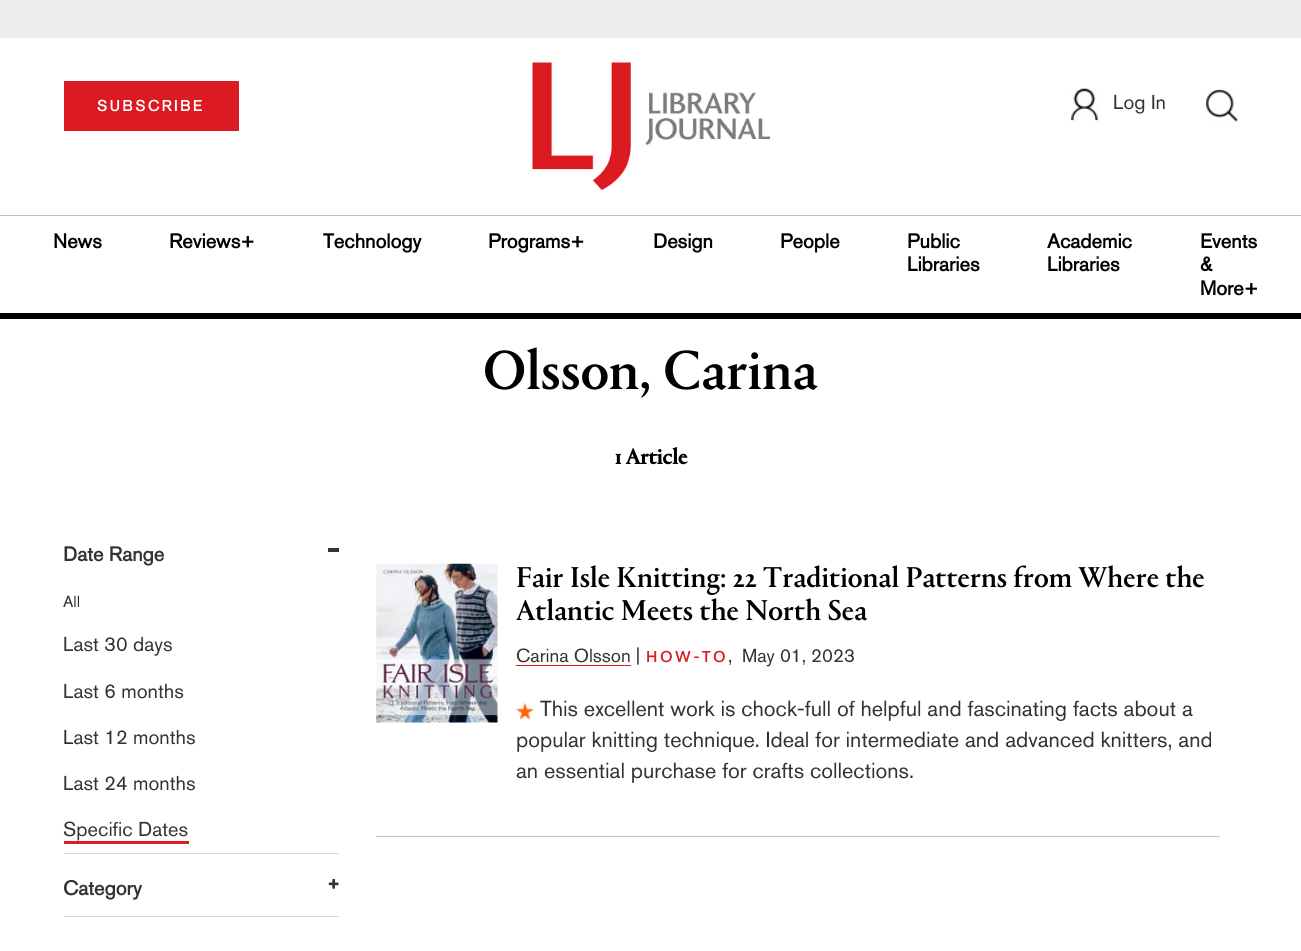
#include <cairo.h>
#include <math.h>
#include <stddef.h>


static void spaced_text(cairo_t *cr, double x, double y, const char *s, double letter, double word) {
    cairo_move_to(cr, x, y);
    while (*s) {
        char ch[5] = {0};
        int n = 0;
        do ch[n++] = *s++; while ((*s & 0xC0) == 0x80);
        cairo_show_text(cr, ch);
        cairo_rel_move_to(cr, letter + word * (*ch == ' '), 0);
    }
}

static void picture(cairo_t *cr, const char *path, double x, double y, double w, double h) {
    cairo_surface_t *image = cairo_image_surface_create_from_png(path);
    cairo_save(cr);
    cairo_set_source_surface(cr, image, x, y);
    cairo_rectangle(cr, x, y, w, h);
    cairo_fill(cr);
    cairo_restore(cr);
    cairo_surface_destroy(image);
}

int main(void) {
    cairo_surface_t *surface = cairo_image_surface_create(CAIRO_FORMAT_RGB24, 1301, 951);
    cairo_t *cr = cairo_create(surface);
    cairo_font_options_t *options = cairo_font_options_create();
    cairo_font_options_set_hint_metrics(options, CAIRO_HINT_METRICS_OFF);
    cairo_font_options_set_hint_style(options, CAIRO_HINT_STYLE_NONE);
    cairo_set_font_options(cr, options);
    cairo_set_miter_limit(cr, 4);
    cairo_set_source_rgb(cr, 1, 1, 1);
    cairo_paint(cr);
    cairo_set_source_rgb(cr, 0.922, 0.922, 0.922);
    cairo_rectangle(cr, 0, 0, 1301, 38);
    cairo_fill(cr);
    cairo_set_source_rgb(cr, 0.859, 0.102, 0.129);
    cairo_rectangle(cr, 64, 81, 175, 50);
    cairo_fill(cr);
    cairo_select_font_face(cr, "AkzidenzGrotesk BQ", CAIRO_FONT_SLANT_NORMAL, CAIRO_FONT_WEIGHT_BOLD);
    cairo_set_font_size(cr, 15);
    cairo_set_source_rgb(cr, 1, 1, 1);
    spaced_text(cr, 97, 111, "SUBSCRIBE", 2.5, 0);
    picture(cr, "img1.png", 532, 62, 238, 128);
    picture(cr, "img2.png", 1071, 88, 29, 33);
    cairo_select_font_face(cr, "AkzidenzGrotesk BQ Medium", CAIRO_FONT_SLANT_NORMAL, CAIRO_FONT_WEIGHT_NORMAL);
    cairo_set_font_size(cr, 20);
    cairo_set_source_rgb(cr, 0.2, 0.2, 0.2);
    cairo_move_to(cr, 1113, 109);
    cairo_show_text(cr, "Log In");
    picture(cr, "img3.png", 1206, 89, 32, 33);
    cairo_set_source_rgb(cr, 0.773, 0.761, 0.761);
    cairo_rectangle(cr, 0, 215, 1301, 1);
    cairo_fill(cr);
    cairo_select_font_face(cr, "AkzidenzGrotesk BQ", CAIRO_FONT_SLANT_NORMAL, CAIRO_FONT_WEIGHT_BOLD);
    cairo_set_source_rgb(cr, 0, 0, 0);
    cairo_move_to(cr, 53, 248);
    cairo_show_text(cr, "News");
    cairo_move_to(cr, 169, 248);
    cairo_show_text(cr, "Reviews+");
    cairo_move_to(cr, 323, 248);
    cairo_show_text(cr, "Technology");
    cairo_move_to(cr, 488, 248);
    cairo_show_text(cr, "Programs+");
    cairo_move_to(cr, 653, 248);
    cairo_show_text(cr, "Design");
    cairo_move_to(cr, 780, 248);
    cairo_show_text(cr, "People");
    cairo_move_to(cr, 907, 248);
    cairo_show_text(cr, "Public");
    cairo_move_to(cr, 907, 271);
    cairo_show_text(cr, "Libraries");
    cairo_move_to(cr, 1047, 248);
    cairo_show_text(cr, "Academic");
    cairo_move_to(cr, 1047, 271);
    cairo_show_text(cr, "Libraries");
    cairo_move_to(cr, 1200, 248);
    cairo_show_text(cr, "Events");
    cairo_move_to(cr, 1200, 271);
    cairo_show_text(cr, "&");
    cairo_move_to(cr, 1200, 295);
    cairo_show_text(cr, "More+");
    cairo_rectangle(cr, 0, 313, 1301, 6);
    cairo_fill(cr);
    cairo_select_font_face(cr, "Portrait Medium", CAIRO_FONT_SLANT_NORMAL, CAIRO_FONT_WEIGHT_NORMAL);
    cairo_set_font_size(cr, 57.5);
    cairo_move_to(cr, 483, 389);
    cairo_show_text(cr, "Olsson, Carina");
    cairo_select_font_face(cr, "Portrait", CAIRO_FONT_SLANT_NORMAL, CAIRO_FONT_WEIGHT_BOLD);
    cairo_set_font_size(cr, 22.5);
    cairo_move_to(cr, 615, 464);
    cairo_show_text(cr, "1 Article");
    cairo_set_source_rgb(cr, 0.847, 0.847, 0.847);
    cairo_rectangle(cr, 64, 853, 275, 1);
    cairo_fill(cr);
    cairo_select_font_face(cr, "AkzidenzGrotesk BQ", CAIRO_FONT_SLANT_NORMAL, CAIRO_FONT_WEIGHT_BOLD);
    cairo_set_font_size(cr, 20);
    cairo_set_source_rgb(cr, 0.2, 0.2, 0.2);
    cairo_move_to(cr, 63, 561);
    cairo_show_text(cr, "Date Range");
    cairo_rectangle(cr, 328, 548, 11, 4);
    cairo_fill(cr);
    cairo_select_font_face(cr, "AkzidenzGrotesk BQ Medium", CAIRO_FONT_SLANT_NORMAL, CAIRO_FONT_WEIGHT_NORMAL);
    cairo_set_font_size(cr, 16);
    cairo_move_to(cr, 63, 607);
    cairo_show_text(cr, "All");
    cairo_set_font_size(cr, 20);
    cairo_move_to(cr, 63, 651);
    cairo_show_text(cr, "Last 30 days");
    cairo_move_to(cr, 63, 698);
    cairo_show_text(cr, "Last 6 months");
    cairo_move_to(cr, 63, 744);
    cairo_show_text(cr, "Last 12 months");
    cairo_move_to(cr, 63, 790);
    cairo_show_text(cr, "Last 24 months");
    cairo_move_to(cr, 63, 836);
    cairo_show_text(cr, "Specific Dates");
    cairo_set_source_rgb(cr, 0.859, 0.102, 0.129);
    cairo_rectangle(cr, 64, 841, 125, 3);
    cairo_fill(cr);
    cairo_set_source_rgb(cr, 0.847, 0.847, 0.847);
    cairo_rectangle(cr, 64, 916, 275, 1);
    cairo_fill(cr);
    cairo_select_font_face(cr, "AkzidenzGrotesk BQ", CAIRO_FONT_SLANT_NORMAL, CAIRO_FONT_WEIGHT_BOLD);
    cairo_set_source_rgb(cr, 0.2, 0.2, 0.2);
    cairo_move_to(cr, 63, 895);
    cairo_show_text(cr, "Category");
    picture(cr, "img4.png", 328, 878, 11, 11);
    picture(cr, "img5.png", 376, 563, 122, 160);
    cairo_select_font_face(cr, "Portrait Medium", CAIRO_FONT_SLANT_NORMAL, CAIRO_FONT_WEIGHT_NORMAL);
    cairo_set_font_size(cr, 30);
    cairo_set_source_rgb(cr, 0, 0, 0);
    cairo_move_to(cr, 516, 587);
    cairo_show_text(cr, "Fair Isle Knitting: 22 Traditional Patterns from Where the");
    cairo_move_to(cr, 516, 620);
    cairo_show_text(cr, "Atlantic Meets the North Sea");
    cairo_select_font_face(cr, "AkzidenzGrotesk BQ Medium", CAIRO_FONT_SLANT_NORMAL, CAIRO_FONT_WEIGHT_NORMAL);
    cairo_set_font_size(cr, 18.75);
    cairo_set_source_rgb(cr, 0.2, 0.2, 0.2);
    cairo_move_to(cr, 516, 662);
    cairo_show_text(cr, "Carina Olsson |");
    cairo_set_source_rgb(cr, 0.859, 0.102, 0.129);
    cairo_rectangle(cr, 516, 665, 115, 1);
    cairo_fill(cr);
    cairo_select_font_face(cr, "AkzidenzGrotesk BQ", CAIRO_FONT_SLANT_NORMAL, CAIRO_FONT_WEIGHT_BOLD);
    cairo_set_font_size(cr, 15);
    spaced_text(cr, 646, 662, "HOW-TO", 3, 0);
    cairo_select_font_face(cr, "AkzidenzGrotesk BQ Medium", CAIRO_FONT_SLANT_NORMAL, CAIRO_FONT_WEIGHT_NORMAL);
    cairo_set_font_size(cr, 18.75);
    cairo_set_source_rgb(cr, 0.2, 0.2, 0.2);
    cairo_move_to(cr, 728, 662);
    cairo_show_text(cr, ",");
    cairo_move_to(cr, 742, 662);
    cairo_show_text(cr, "May 01, 2023");
    picture(cr, "img6.png", 516, 702, 18, 18);
    cairo_set_font_size(cr, 21.7);
    cairo_move_to(cr, 540, 716);
    cairo_show_text(cr, "This excellent work is chock-full of helpful and fascinating facts about a");
    cairo_move_to(cr, 516, 747);
    cairo_show_text(cr, "popular knitting technique. Ideal for intermediate and advanced knitters, and");
    cairo_move_to(cr, 516, 778);
    cairo_show_text(cr, "an essential purchase for crafts collections.");
    cairo_set_source_rgb(cr, 0.773, 0.761, 0.761);
    cairo_rectangle(cr, 376, 836, 844, 1);
    cairo_fill(cr);
    cairo_surface_write_to_png(surface, "page.png");
    cairo_font_options_destroy(options);
    cairo_destroy(cr);
    cairo_surface_destroy(surface);
    return 0;
}
